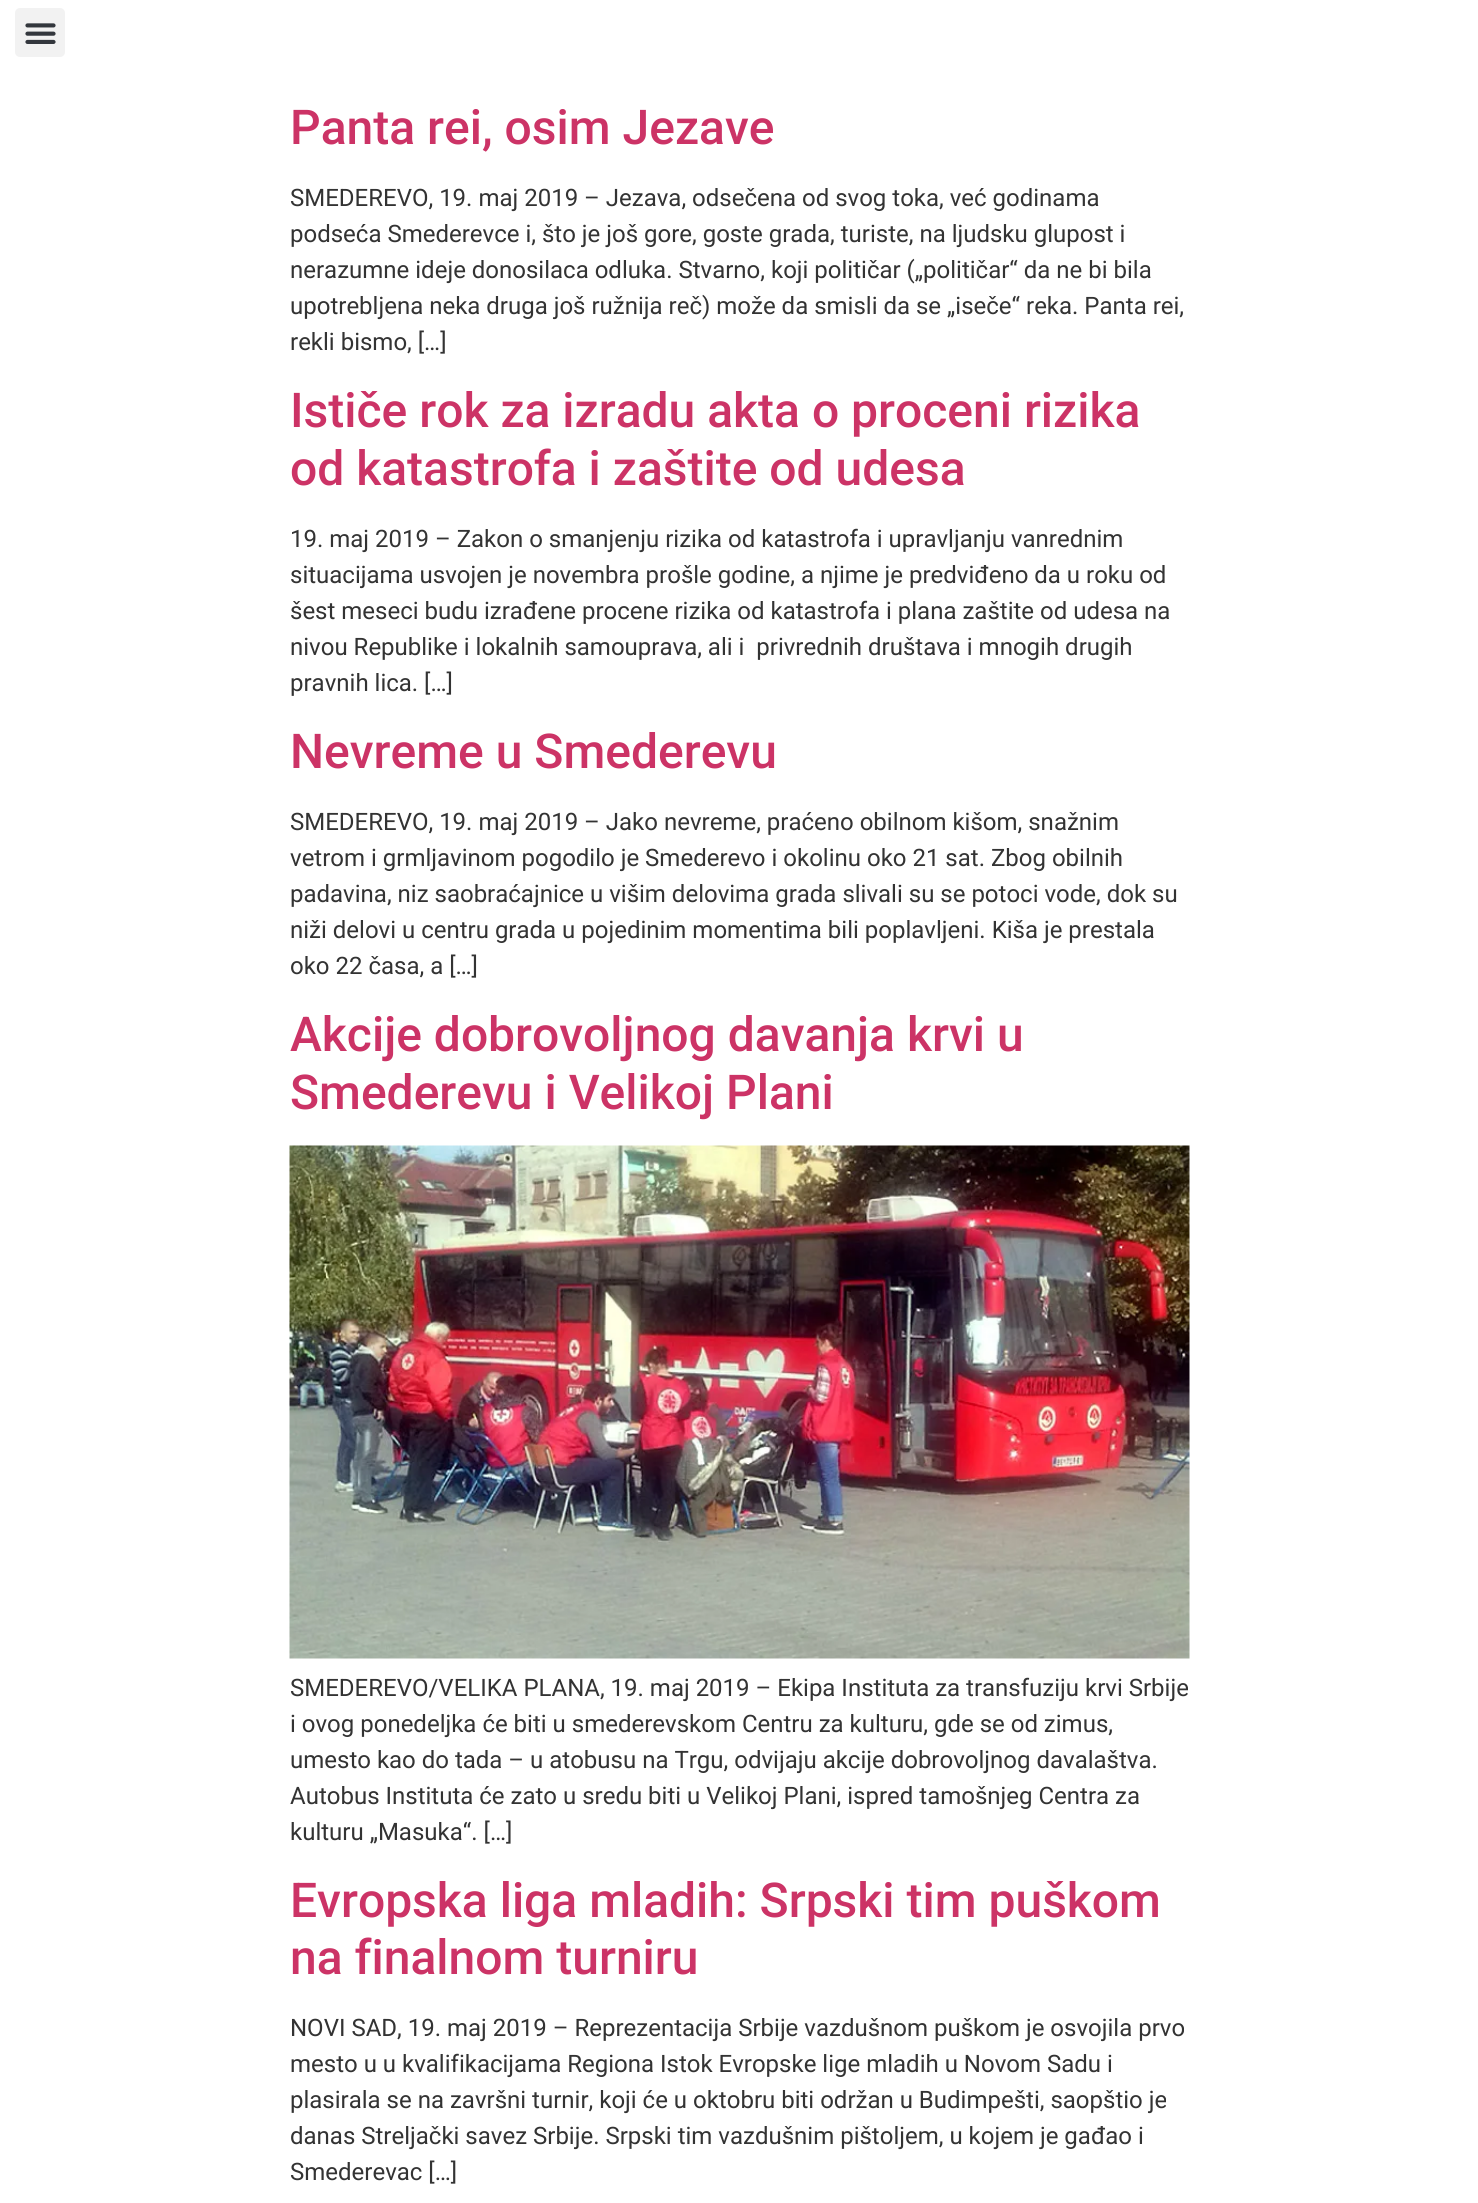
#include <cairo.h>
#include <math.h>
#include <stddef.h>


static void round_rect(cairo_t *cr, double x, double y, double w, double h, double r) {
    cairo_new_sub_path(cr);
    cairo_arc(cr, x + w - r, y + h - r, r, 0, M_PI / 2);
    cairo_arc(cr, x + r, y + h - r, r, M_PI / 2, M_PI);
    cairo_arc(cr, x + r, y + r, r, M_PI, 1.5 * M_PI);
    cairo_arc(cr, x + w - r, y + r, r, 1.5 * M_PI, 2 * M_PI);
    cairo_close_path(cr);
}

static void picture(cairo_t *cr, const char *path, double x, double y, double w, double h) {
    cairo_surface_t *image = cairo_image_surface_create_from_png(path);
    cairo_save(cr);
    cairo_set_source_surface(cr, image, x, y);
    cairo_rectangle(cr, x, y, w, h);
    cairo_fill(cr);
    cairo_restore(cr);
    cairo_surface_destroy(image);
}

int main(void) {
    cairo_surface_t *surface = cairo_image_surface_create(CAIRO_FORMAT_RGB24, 1478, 2203);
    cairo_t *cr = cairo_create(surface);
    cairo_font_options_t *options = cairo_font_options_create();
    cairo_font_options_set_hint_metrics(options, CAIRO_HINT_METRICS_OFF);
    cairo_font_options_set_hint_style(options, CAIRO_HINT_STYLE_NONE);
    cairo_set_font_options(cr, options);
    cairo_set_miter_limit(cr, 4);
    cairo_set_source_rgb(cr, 1, 1, 1);
    cairo_paint(cr);
    cairo_set_source_rgb(cr, 0.949, 0.949, 0.949);
    round_rect(cr, 15, 8, 50, 49, 5);
    cairo_fill(cr);
    picture(cr, "img1.png", 25, 23, 31, 21);
    cairo_select_font_face(cr, "Roboto Medium", CAIRO_FONT_SLANT_NORMAL, CAIRO_FONT_WEIGHT_NORMAL);
    cairo_set_font_size(cr, 48);
    cairo_set_source_rgb(cr, 0.8, 0.2, 0.4);
    cairo_move_to(cr, 290, 144);
    cairo_show_text(cr, "Panta rei, osim Jezave");
    cairo_select_font_face(cr, "Roboto", CAIRO_FONT_SLANT_NORMAL, CAIRO_FONT_WEIGHT_NORMAL);
    cairo_set_font_size(cr, 24);
    cairo_set_source_rgb(cr, 0.2, 0.2, 0.2);
    cairo_move_to(cr, 290, 206);
    cairo_show_text(cr, "SMEDEREVO, 19. maj 2019 – Jezava, odsečena od svog toka, već godinama");
    cairo_move_to(cr, 290, 242);
    cairo_show_text(cr, "podseća Smederevce i, što je još gore, goste grada, turiste, na ljudsku glupost i");
    cairo_move_to(cr, 290, 278);
    cairo_show_text(cr, "nerazumne ideje donosilaca odluka. Stvarno, koji političar („političar“ da ne bi bila");
    cairo_move_to(cr, 290, 314);
    cairo_show_text(cr, "upotrebljena neka druga još ružnija reč) može da smisli da se „iseče“ reka. Panta rei,");
    cairo_move_to(cr, 290, 350);
    cairo_show_text(cr, "rekli bismo, […]");
    cairo_select_font_face(cr, "Roboto Medium", CAIRO_FONT_SLANT_NORMAL, CAIRO_FONT_WEIGHT_NORMAL);
    cairo_set_font_size(cr, 48);
    cairo_set_source_rgb(cr, 0.8, 0.2, 0.4);
    cairo_move_to(cr, 290, 427);
    cairo_show_text(cr, "Ističe rok za izradu akta o proceni rizika");
    cairo_move_to(cr, 290, 485);
    cairo_show_text(cr, "od katastrofa i zaštite od udesa");
    cairo_select_font_face(cr, "Roboto", CAIRO_FONT_SLANT_NORMAL, CAIRO_FONT_WEIGHT_NORMAL);
    cairo_set_font_size(cr, 24);
    cairo_set_source_rgb(cr, 0.2, 0.2, 0.2);
    cairo_move_to(cr, 290, 547);
    cairo_show_text(cr, "19. maj 2019 – Zakon o smanjenju rizika od katastrofa i upravljanju vanrednim");
    cairo_move_to(cr, 290, 583);
    cairo_show_text(cr, "situacijama usvojen je novembra prošle godine, a njime je predviđeno da u roku od");
    cairo_move_to(cr, 290, 619);
    cairo_show_text(cr, "šest meseci budu izrađene procene rizika od katastrofa i plana zaštite od udesa na");
    cairo_move_to(cr, 290, 655);
    cairo_show_text(cr, "nivou Republike i lokalnih samouprava, ali i  privrednih društava i mnogih drugih");
    cairo_move_to(cr, 290, 691);
    cairo_show_text(cr, "pravnih lica. […]");
    cairo_select_font_face(cr, "Roboto Medium", CAIRO_FONT_SLANT_NORMAL, CAIRO_FONT_WEIGHT_NORMAL);
    cairo_set_font_size(cr, 48);
    cairo_set_source_rgb(cr, 0.8, 0.2, 0.4);
    cairo_move_to(cr, 290, 768);
    cairo_show_text(cr, "Nevreme u Smederevu");
    cairo_select_font_face(cr, "Roboto", CAIRO_FONT_SLANT_NORMAL, CAIRO_FONT_WEIGHT_NORMAL);
    cairo_set_font_size(cr, 24);
    cairo_set_source_rgb(cr, 0.2, 0.2, 0.2);
    cairo_move_to(cr, 290, 830);
    cairo_show_text(cr, "SMEDEREVO, 19. maj 2019 – Jako nevreme, praćeno obilnom kišom, snažnim");
    cairo_move_to(cr, 290, 866);
    cairo_show_text(cr, "vetrom i grmljavinom pogodilo je Smederevo i okolinu oko 21 sat. Zbog obilnih");
    cairo_move_to(cr, 290, 902);
    cairo_show_text(cr, "padavina, niz saobraćajnice u višim delovima grada slivali su se potoci vode, dok su");
    cairo_move_to(cr, 290, 938);
    cairo_show_text(cr, "niži delovi u centru grada u pojedinim momentima bili poplavljeni. Kiša je prestala");
    cairo_move_to(cr, 290, 974);
    cairo_show_text(cr, "oko 22 časa, a […]");
    cairo_select_font_face(cr, "Roboto Medium", CAIRO_FONT_SLANT_NORMAL, CAIRO_FONT_WEIGHT_NORMAL);
    cairo_set_font_size(cr, 48);
    cairo_set_source_rgb(cr, 0.8, 0.2, 0.4);
    cairo_move_to(cr, 290, 1051);
    cairo_show_text(cr, "Akcije dobrovoljnog davanja krvi u");
    cairo_move_to(cr, 290, 1109);
    cairo_show_text(cr, "Smederevu i Velikoj Plani");
    picture(cr, "img2.png", 289, 1145, 901, 514);
    cairo_select_font_face(cr, "Roboto", CAIRO_FONT_SLANT_NORMAL, CAIRO_FONT_WEIGHT_NORMAL);
    cairo_set_font_size(cr, 24);
    cairo_set_source_rgb(cr, 0.2, 0.2, 0.2);
    cairo_move_to(cr, 290, 1696);
    cairo_show_text(cr, "SMEDEREVO/VELIKA PLANA, 19. maj 2019 – Ekipa Instituta za transfuziju krvi Srbije");
    cairo_move_to(cr, 290, 1732);
    cairo_show_text(cr, "i ovog ponedeljka će biti u smederevskom Centru za kulturu, gde se od zimus,");
    cairo_move_to(cr, 290, 1768);
    cairo_show_text(cr, "umesto kao do tada – u atobusu na Trgu, odvijaju akcije dobrovoljnog davalaštva.");
    cairo_move_to(cr, 290, 1804);
    cairo_show_text(cr, "Autobus Instituta će zato u sredu biti u Velikoj Plani, ispred tamošnjeg Centra za");
    cairo_move_to(cr, 290, 1840);
    cairo_show_text(cr, "kulturu „Masuka“. […]");
    cairo_select_font_face(cr, "Roboto Medium", CAIRO_FONT_SLANT_NORMAL, CAIRO_FONT_WEIGHT_NORMAL);
    cairo_set_font_size(cr, 48);
    cairo_set_source_rgb(cr, 0.8, 0.2, 0.4);
    cairo_move_to(cr, 290, 1917);
    cairo_show_text(cr, "Evropska liga mladih: Srpski tim puškom");
    cairo_move_to(cr, 290, 1974);
    cairo_show_text(cr, "na finalnom turniru");
    cairo_select_font_face(cr, "Roboto", CAIRO_FONT_SLANT_NORMAL, CAIRO_FONT_WEIGHT_NORMAL);
    cairo_set_font_size(cr, 24);
    cairo_set_source_rgb(cr, 0.2, 0.2, 0.2);
    cairo_move_to(cr, 290, 2036);
    cairo_show_text(cr, "NOVI SAD, 19. maj 2019 – Reprezentacija Srbije vazdušnom puškom je osvojila prvo");
    cairo_move_to(cr, 290, 2072);
    cairo_show_text(cr, "mesto u u kvalifikacijama Regiona Istok Evropske lige mladih u Novom Sadu i");
    cairo_move_to(cr, 290, 2108);
    cairo_show_text(cr, "plasirala se na završni turnir, koji će u oktobru biti održan u Budimpešti, saopštio je");
    cairo_move_to(cr, 290, 2144);
    cairo_show_text(cr, "danas Streljački savez Srbije. Srpski tim vazdušnim pištoljem, u kojem je gađao i");
    cairo_move_to(cr, 290, 2180);
    cairo_show_text(cr, "Smederevac […]");
    cairo_surface_write_to_png(surface, "page.png");
    cairo_font_options_destroy(options);
    cairo_destroy(cr);
    cairo_surface_destroy(surface);
    return 0;
}
